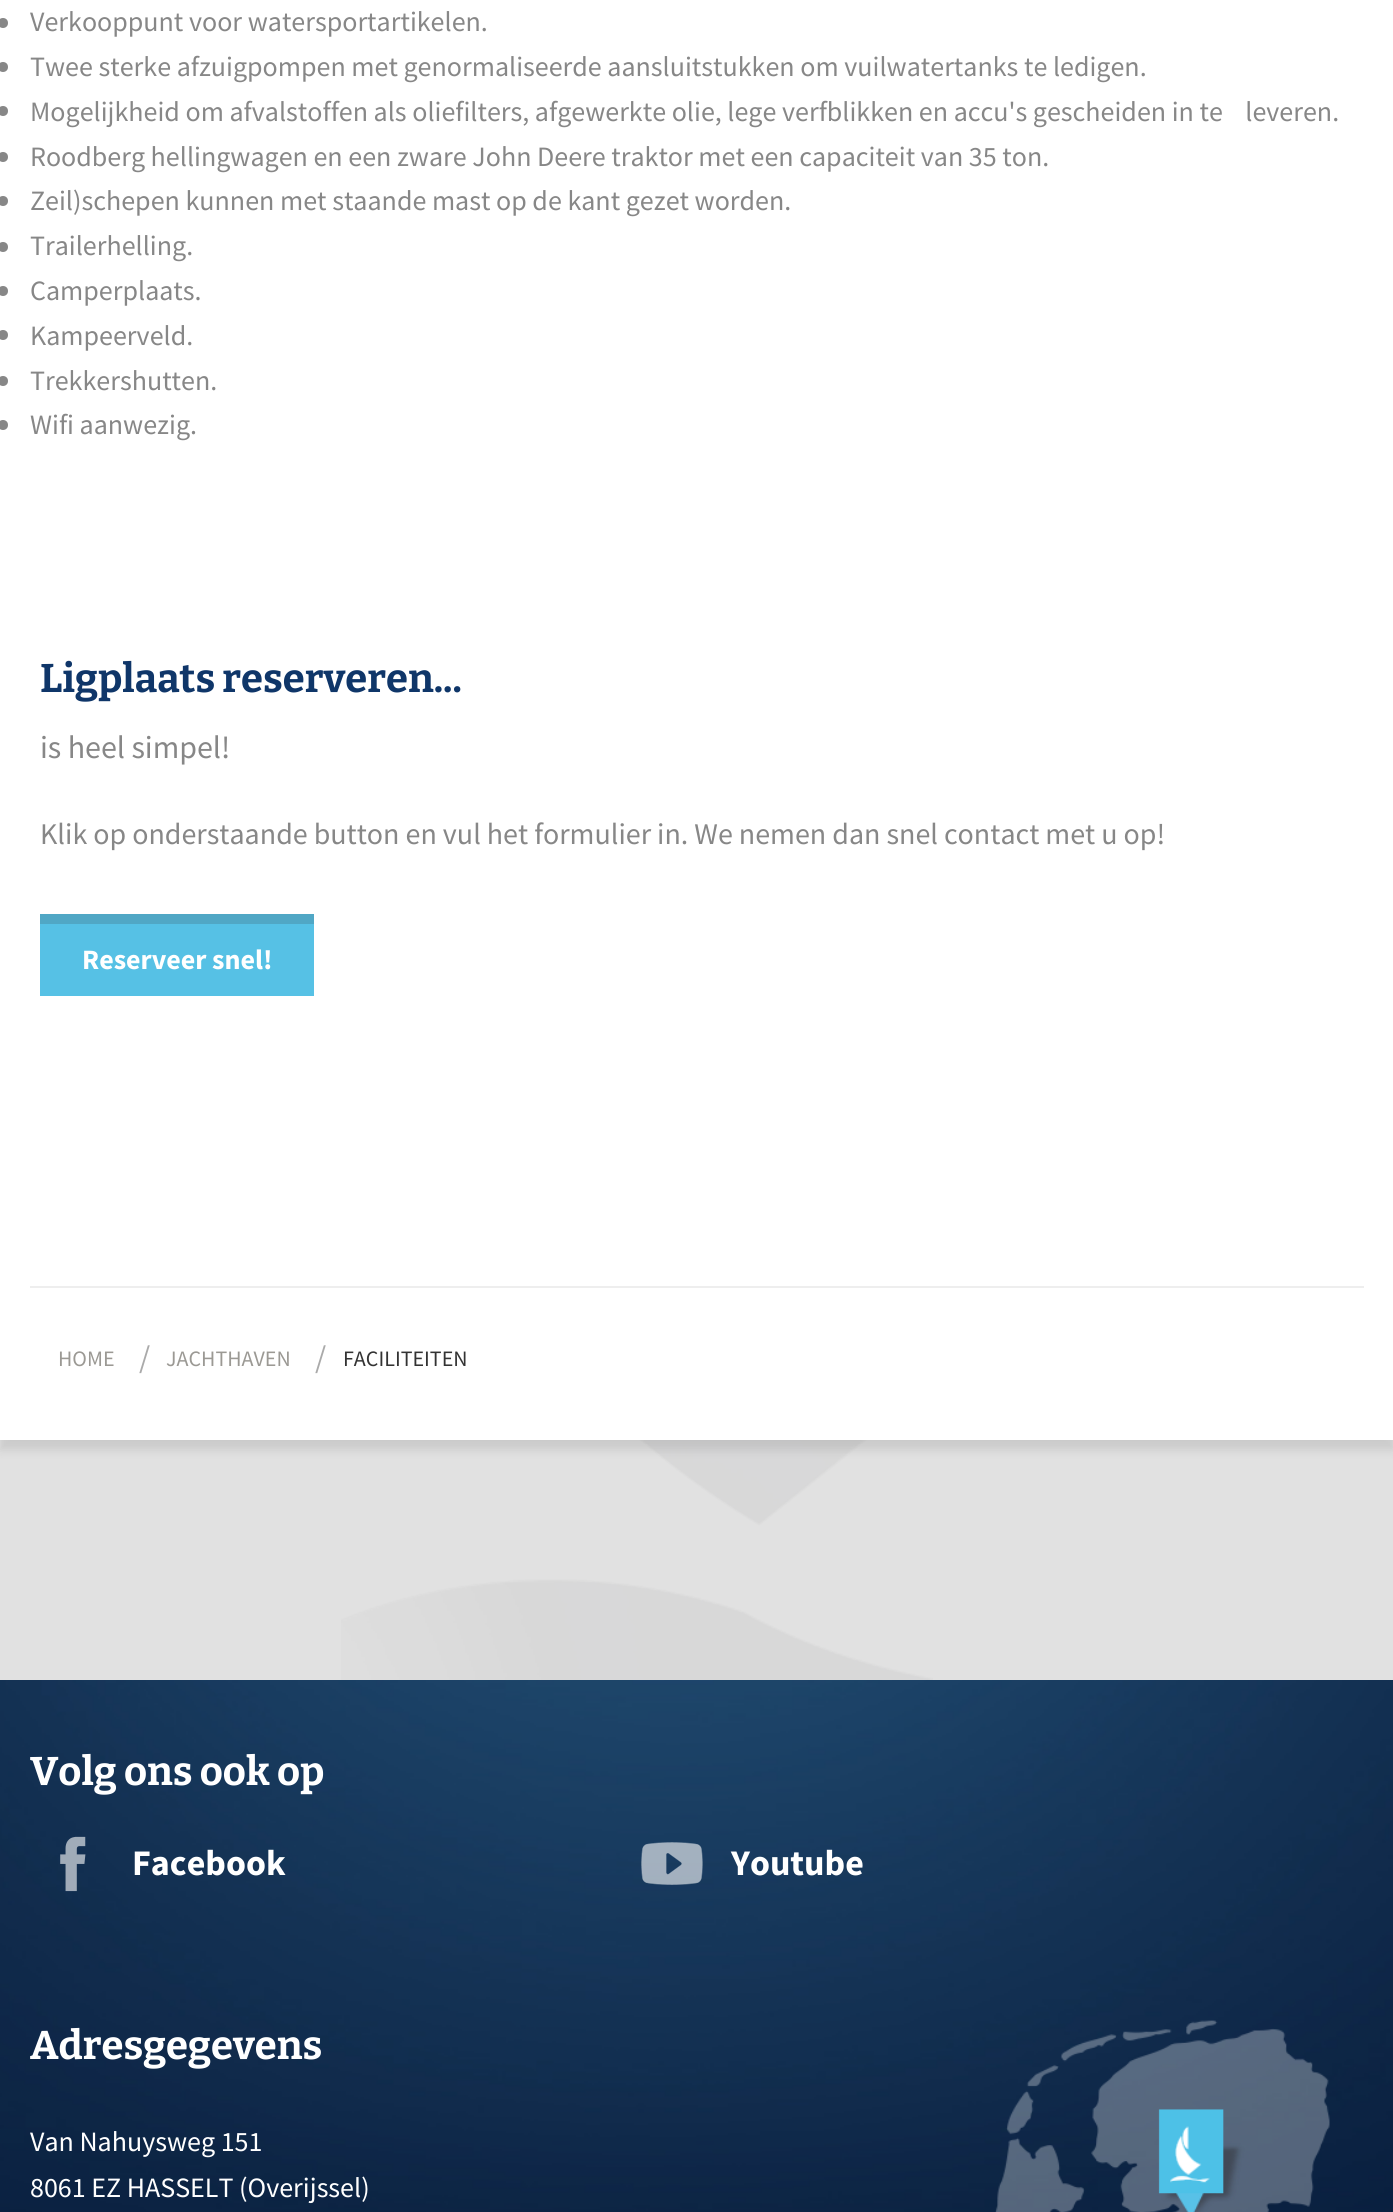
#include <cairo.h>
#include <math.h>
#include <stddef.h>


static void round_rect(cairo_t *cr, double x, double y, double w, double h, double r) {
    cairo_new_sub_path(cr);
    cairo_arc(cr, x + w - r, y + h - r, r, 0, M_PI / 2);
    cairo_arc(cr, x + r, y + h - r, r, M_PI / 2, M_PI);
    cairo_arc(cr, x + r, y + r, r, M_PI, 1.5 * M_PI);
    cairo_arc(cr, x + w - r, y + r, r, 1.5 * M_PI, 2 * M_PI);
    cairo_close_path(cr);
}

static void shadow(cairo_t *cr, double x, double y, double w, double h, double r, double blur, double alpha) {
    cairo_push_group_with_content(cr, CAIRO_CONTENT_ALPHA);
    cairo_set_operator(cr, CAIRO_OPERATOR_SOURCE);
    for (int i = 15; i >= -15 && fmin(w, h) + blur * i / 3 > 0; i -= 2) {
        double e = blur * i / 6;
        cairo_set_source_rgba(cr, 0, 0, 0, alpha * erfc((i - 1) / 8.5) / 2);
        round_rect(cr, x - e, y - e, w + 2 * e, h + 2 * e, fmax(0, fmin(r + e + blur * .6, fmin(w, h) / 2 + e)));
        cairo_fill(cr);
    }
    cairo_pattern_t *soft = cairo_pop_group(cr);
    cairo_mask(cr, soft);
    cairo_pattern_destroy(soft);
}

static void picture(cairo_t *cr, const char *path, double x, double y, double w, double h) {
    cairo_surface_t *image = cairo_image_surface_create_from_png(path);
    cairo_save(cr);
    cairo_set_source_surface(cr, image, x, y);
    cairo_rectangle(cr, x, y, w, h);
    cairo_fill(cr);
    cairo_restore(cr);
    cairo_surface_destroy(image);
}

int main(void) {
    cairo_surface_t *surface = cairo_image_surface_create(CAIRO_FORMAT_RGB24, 1393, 2212);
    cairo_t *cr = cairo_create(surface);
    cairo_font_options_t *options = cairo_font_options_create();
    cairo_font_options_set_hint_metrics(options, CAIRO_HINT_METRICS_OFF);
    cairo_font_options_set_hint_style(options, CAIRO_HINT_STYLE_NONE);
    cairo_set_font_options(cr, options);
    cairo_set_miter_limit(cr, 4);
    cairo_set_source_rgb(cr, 1, 1, 1);
    cairo_paint(cr);
    cairo_set_source_rgb(cr, 0.882, 0.882, 0.882);
    cairo_rectangle(cr, 0, 1440, 1393, 240);
    cairo_fill(cr);
    picture(cr, "img1.png", 341, 1440, 592, 240);
    cairo_set_source_rgb(cr, 0, 0, 0);
    shadow(cr, 0, -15, 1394, 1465, 0, 5, 0.1);
    cairo_set_source_rgb(cr, 1, 1, 1);
    cairo_rectangle(cr, 0, 0, 1393, 1440);
    cairo_fill(cr);
    cairo_set_source_rgb(cr, 0.529, 0.529, 0.529);
    cairo_arc(cr, 3, 23, 5, 0, 2 * M_PI);
    cairo_fill(cr);
    cairo_select_font_face(cr, "Source Sans Pro", CAIRO_FONT_SLANT_NORMAL, CAIRO_FONT_WEIGHT_NORMAL);
    cairo_set_font_size(cr, 28);
    cairo_move_to(cr, 30, 31);
    cairo_show_text(cr, "Verkooppunt voor watersportartikelen.");
    cairo_new_path(cr);
    cairo_arc(cr, 3, 67, 5, 0, 2 * M_PI);
    cairo_fill(cr);
    cairo_move_to(cr, 30, 76);
    cairo_show_text(cr, "Twee sterke afzuigpompen met genormaliseerde aansluitstukken om vuilwatertanks te ledigen.");
    cairo_new_path(cr);
    cairo_arc(cr, 3, 111, 5, 0, 2 * M_PI);
    cairo_fill(cr);
    cairo_move_to(cr, 30, 121);
    cairo_show_text(cr, "Mogelijkheid om afvalstoffen als oliefilters, afgewerkte olie, lege verfblikken en accu's gescheiden in te    leveren.");
    cairo_new_path(cr);
    cairo_arc(cr, 3, 157, 5, 0, 2 * M_PI);
    cairo_fill(cr);
    cairo_move_to(cr, 30, 166);
    cairo_show_text(cr, "Roodberg hellingwagen en een zware John Deere traktor met een capaciteit van 35 ton.");
    cairo_new_path(cr);
    cairo_arc(cr, 3, 201, 5, 0, 2 * M_PI);
    cairo_fill(cr);
    cairo_move_to(cr, 30, 210);
    cairo_show_text(cr, "Zeil)schepen kunnen met staande mast op de kant gezet worden.");
    cairo_new_path(cr);
    cairo_arc(cr, 3, 247, 5, 0, 2 * M_PI);
    cairo_fill(cr);
    cairo_move_to(cr, 30, 255);
    cairo_show_text(cr, "Trailerhelling.");
    cairo_new_path(cr);
    cairo_arc(cr, 3, 291, 5, 0, 2 * M_PI);
    cairo_fill(cr);
    cairo_move_to(cr, 30, 300);
    cairo_show_text(cr, "Camperplaats.");
    cairo_new_path(cr);
    cairo_arc(cr, 3, 335, 5, 0, 2 * M_PI);
    cairo_fill(cr);
    cairo_move_to(cr, 30, 345);
    cairo_show_text(cr, "Kampeerveld.");
    cairo_new_path(cr);
    cairo_arc(cr, 3, 381, 5, 0, 2 * M_PI);
    cairo_fill(cr);
    cairo_move_to(cr, 30, 390);
    cairo_show_text(cr, "Trekkershutten.");
    cairo_new_path(cr);
    cairo_arc(cr, 3, 425, 5, 0, 2 * M_PI);
    cairo_fill(cr);
    cairo_move_to(cr, 30, 434);
    cairo_show_text(cr, "Wifi aanwezig.");
    cairo_select_font_face(cr, "Bitter", CAIRO_FONT_SLANT_NORMAL, CAIRO_FONT_WEIGHT_BOLD);
    cairo_set_font_size(cr, 40);
    cairo_set_source_rgb(cr, 0.059, 0.212, 0.412);
    cairo_move_to(cr, 40, 692);
    cairo_show_text(cr, "Ligplaats reserveren...");
    cairo_select_font_face(cr, "Source Sans Pro", CAIRO_FONT_SLANT_NORMAL, CAIRO_FONT_WEIGHT_NORMAL);
    cairo_set_font_size(cr, 32);
    cairo_set_source_rgb(cr, 0.529, 0.529, 0.529);
    cairo_move_to(cr, 40, 758);
    cairo_show_text(cr, "is heel simpel!");
    cairo_set_font_size(cr, 30);
    cairo_move_to(cr, 40, 844);
    cairo_show_text(cr, "Klik op onderstaande button en vul het formulier in. We nemen dan snel contact met u op!");
    cairo_set_source_rgb(cr, 0.337, 0.757, 0.898);
    cairo_rectangle(cr, 40, 924, 274, 72);
    cairo_fill(cr);
    cairo_set_source_rgb(cr, 0.314, 0.655, 0.773);
    cairo_rectangle(cr, 40, 914, 274, 10);
    cairo_fill(cr);
    cairo_select_font_face(cr, "Source Sans Pro", CAIRO_FONT_SLANT_NORMAL, CAIRO_FONT_WEIGHT_BOLD);
    cairo_set_font_size(cr, 28);
    cairo_set_source_rgb(cr, 1, 1, 1);
    cairo_move_to(cr, 82, 969);
    cairo_show_text(cr, "Reserveer snel!");
    cairo_set_source_rgb(cr, 0.933, 0.933, 0.933);
    cairo_rectangle(cr, 30, 1286, 1334, 2);
    cairo_fill(cr);
    cairo_select_font_face(cr, "Source Sans Pro", CAIRO_FONT_SLANT_NORMAL, CAIRO_FONT_WEIGHT_NORMAL);
    cairo_set_font_size(cr, 22);
    cairo_set_source_rgb(cr, 0.608, 0.6, 0.58);
    cairo_move_to(cr, 58, 1366);
    cairo_show_text(cr, "HOME");
    cairo_set_font_size(cr, 32);
    cairo_set_source_rgb(cr, 0.667, 0.667, 0.667);
    cairo_move_to(cr, 139, 1368);
    cairo_show_text(cr, "/");
    cairo_set_font_size(cr, 22);
    cairo_set_source_rgb(cr, 0.608, 0.6, 0.58);
    cairo_move_to(cr, 166, 1366);
    cairo_show_text(cr, "JACHTHAVEN");
    cairo_set_font_size(cr, 32);
    cairo_set_source_rgb(cr, 0.667, 0.667, 0.667);
    cairo_move_to(cr, 315, 1368);
    cairo_show_text(cr, "/");
    cairo_set_font_size(cr, 22);
    cairo_set_source_rgb(cr, 0.2, 0.2, 0.2);
    cairo_move_to(cr, 343, 1366);
    cairo_show_text(cr, "FACILITEITEN");
    picture(cr, "img2.png", 0, 1680, 1393, 532);
    cairo_select_font_face(cr, "Bitter", CAIRO_FONT_SLANT_NORMAL, CAIRO_FONT_WEIGHT_BOLD);
    cairo_set_font_size(cr, 40);
    cairo_set_source_rgb(cr, 1, 1, 1);
    cairo_move_to(cr, 30, 1785);
    cairo_show_text(cr, "Volg ons ook op");
    picture(cr, "img3.png", 60, 1836, 26, 56);
    cairo_select_font_face(cr, "Source Sans Pro", CAIRO_FONT_SLANT_NORMAL, CAIRO_FONT_WEIGHT_BOLD);
    cairo_set_font_size(cr, 36);
    cairo_move_to(cr, 132, 1875);
    cairo_show_text(cr, "Facebook");
    picture(cr, "img4.png", 641, 1842, 62, 43);
    cairo_move_to(cr, 731, 1875);
    cairo_show_text(cr, "Youtube");
    cairo_select_font_face(cr, "Bitter", CAIRO_FONT_SLANT_NORMAL, CAIRO_FONT_WEIGHT_BOLD);
    cairo_set_font_size(cr, 40);
    cairo_move_to(cr, 30, 2059);
    cairo_show_text(cr, "Adresgegevens");
    cairo_select_font_face(cr, "Source Sans Pro", CAIRO_FONT_SLANT_NORMAL, CAIRO_FONT_WEIGHT_NORMAL);
    cairo_set_font_size(cr, 28);
    cairo_move_to(cr, 30, 2151);
    cairo_show_text(cr, "Van Nahuysweg 151");
    cairo_move_to(cr, 30, 2197);
    cairo_show_text(cr, "8061 EZ HASSELT (Overijssel)");
    picture(cr, "img5.png", 995, 2020, 335, 192);
    cairo_surface_write_to_png(surface, "page.png");
    cairo_font_options_destroy(options);
    cairo_destroy(cr);
    cairo_surface_destroy(surface);
    return 0;
}
